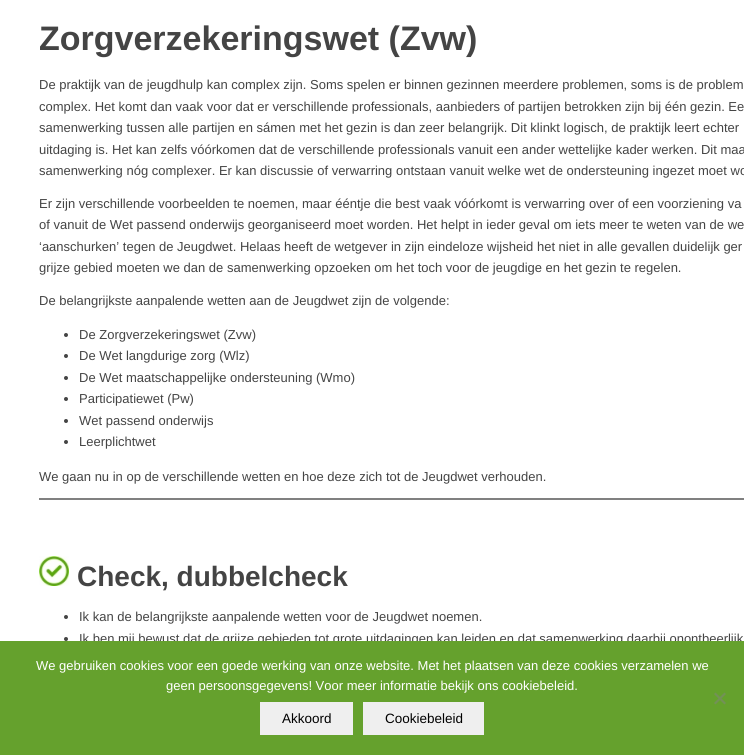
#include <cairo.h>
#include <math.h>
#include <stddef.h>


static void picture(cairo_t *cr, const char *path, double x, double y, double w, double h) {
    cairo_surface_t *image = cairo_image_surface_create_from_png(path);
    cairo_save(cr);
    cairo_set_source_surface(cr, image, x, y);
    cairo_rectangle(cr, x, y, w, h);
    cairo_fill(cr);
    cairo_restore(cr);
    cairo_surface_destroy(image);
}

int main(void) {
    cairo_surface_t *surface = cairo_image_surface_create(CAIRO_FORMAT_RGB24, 744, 755);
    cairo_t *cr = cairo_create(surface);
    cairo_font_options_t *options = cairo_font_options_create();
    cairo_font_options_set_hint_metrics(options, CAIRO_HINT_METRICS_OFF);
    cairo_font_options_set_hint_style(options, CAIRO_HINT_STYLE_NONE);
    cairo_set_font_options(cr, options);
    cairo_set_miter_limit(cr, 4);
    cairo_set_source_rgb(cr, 1, 1, 1);
    cairo_paint(cr);
    cairo_select_font_face(cr, "Liberation Sans", CAIRO_FONT_SLANT_NORMAL, CAIRO_FONT_WEIGHT_BOLD);
    cairo_set_font_size(cr, 34);
    cairo_set_source_rgb(cr, 0.267, 0.267, 0.267);
    cairo_move_to(cr, 39, 50);
    cairo_show_text(cr, "Zorgverzekeringswet (Zvw)");
    cairo_select_font_face(cr, "Liberation Sans", CAIRO_FONT_SLANT_NORMAL, CAIRO_FONT_WEIGHT_NORMAL);
    cairo_set_font_size(cr, 13);
    cairo_move_to(cr, 39, 89);
    cairo_show_text(cr, "De praktijk van de jeugdhulp kan complex zijn. Soms spelen er binnen gezinnen meerdere problemen, soms is de problem");
    cairo_move_to(cr, 39, 111);
    cairo_show_text(cr, "complex. Het komt dan vaak voor dat er verschillende professionals, aanbieders of partijen betrokken zijn bij één gezin. Ee");
    cairo_move_to(cr, 39, 132);
    cairo_show_text(cr, "samenwerking tussen alle partijen en sámen met het gezin is dan zeer belangrijk. Dit klinkt logisch, de praktijk leert echter");
    cairo_move_to(cr, 39, 154);
    cairo_show_text(cr, "uitdaging is. Het kan zelfs vóórkomen dat de verschillende professionals vanuit een ander wettelijke kader werken. Dit maa");
    cairo_move_to(cr, 39, 175);
    cairo_show_text(cr, "samenwerking nóg complexer. Er kan discussie of verwarring ontstaan vanuit welke wet de ondersteuning ingezet moet wo");
    cairo_move_to(cr, 39, 208);
    cairo_show_text(cr, "Er zijn verschillende voorbeelden te noemen, maar ééntje die best vaak vóórkomt is verwarring over of een voorziening va");
    cairo_move_to(cr, 39, 229);
    cairo_show_text(cr, "of vanuit de Wet passend onderwijs georganiseerd moet worden. Het helpt in ieder geval om iets meer te weten van de we");
    cairo_move_to(cr, 39, 251);
    cairo_show_text(cr, "‘aanschurken’ tegen de Jeugdwet. Helaas heeft de wetgever in zijn eindeloze wijsheid het niet in alle gevallen duidelijk ger");
    cairo_move_to(cr, 39, 272);
    cairo_show_text(cr, "grijze gebied moeten we dan de samenwerking opzoeken om het toch voor de jeugdige en het gezin te regelen.");
    cairo_move_to(cr, 39, 305);
    cairo_show_text(cr, "De belangrijkste aanpalende wetten aan de Jeugdwet zijn de volgende:");
    cairo_new_path(cr);
    cairo_arc(cr, 66, 335, 2, 0, 2 * M_PI);
    cairo_fill(cr);
    cairo_move_to(cr, 79, 339);
    cairo_show_text(cr, "De Zorgverzekeringswet (Zvw)");
    cairo_new_path(cr);
    cairo_arc(cr, 66, 356, 2, 0, 2 * M_PI);
    cairo_fill(cr);
    cairo_move_to(cr, 79, 360);
    cairo_show_text(cr, "De Wet langdurige zorg (Wlz)");
    cairo_new_path(cr);
    cairo_arc(cr, 66, 378, 2, 0, 2 * M_PI);
    cairo_fill(cr);
    cairo_move_to(cr, 79, 382);
    cairo_show_text(cr, "De Wet maatschappelijke ondersteuning (Wmo)");
    cairo_new_path(cr);
    cairo_arc(cr, 66, 399, 2, 0, 2 * M_PI);
    cairo_fill(cr);
    cairo_move_to(cr, 79, 403);
    cairo_show_text(cr, "Participatiewet (Pw)");
    cairo_new_path(cr);
    cairo_arc(cr, 66, 421, 2, 0, 2 * M_PI);
    cairo_fill(cr);
    cairo_move_to(cr, 79, 425);
    cairo_show_text(cr, "Wet passend onderwijs");
    cairo_new_path(cr);
    cairo_arc(cr, 66, 442, 2, 0, 2 * M_PI);
    cairo_fill(cr);
    cairo_move_to(cr, 79, 446);
    cairo_show_text(cr, "Leerplichtwet");
    cairo_move_to(cr, 39, 481);
    cairo_show_text(cr, "We gaan nu in op de verschillende wetten en hoe deze zich tot de Jeugdwet verhouden.");
    cairo_set_source_rgb(cr, 0.502, 0.502, 0.502);
    cairo_rectangle(cr, 39, 498, 705, 2);
    cairo_fill(cr);
    picture(cr, "img1.png", 39, 556, 30, 30);
    cairo_select_font_face(cr, "Liberation Sans", CAIRO_FONT_SLANT_NORMAL, CAIRO_FONT_WEIGHT_BOLD);
    cairo_set_font_size(cr, 28);
    cairo_set_source_rgb(cr, 0.267, 0.267, 0.267);
    cairo_move_to(cr, 77, 586);
    cairo_show_text(cr, "Check, dubbelcheck");
    cairo_new_path(cr);
    cairo_arc(cr, 66, 617, 2, 0, 2 * M_PI);
    cairo_fill(cr);
    cairo_select_font_face(cr, "Liberation Sans", CAIRO_FONT_SLANT_NORMAL, CAIRO_FONT_WEIGHT_NORMAL);
    cairo_set_font_size(cr, 13);
    cairo_move_to(cr, 79, 621);
    cairo_show_text(cr, "Ik kan de belangrijkste aanpalende wetten voor de Jeugdwet noemen.");
    cairo_new_path(cr);
    cairo_arc(cr, 66, 639, 2, 0, 2 * M_PI);
    cairo_fill(cr);
    cairo_move_to(cr, 79, 643);
    cairo_show_text(cr, "Ik ben mij bewust dat de grijze gebieden tot grote uitdagingen kan leiden en dat samenwerking daarbij onontbeerlijk");
    cairo_set_source_rgb(cr, 0.396, 0.631, 0.176);
    cairo_rectangle(cr, 0, 641, 744, 114);
    cairo_fill(cr);
    cairo_set_source_rgb(cr, 1, 1, 1);
    cairo_move_to(cr, 36, 670);
    cairo_show_text(cr, "We gebruiken cookies voor een goede werking van onze website. Met het plaatsen van deze cookies verzamelen we");
    cairo_move_to(cr, 166, 690);
    cairo_show_text(cr, "geen persoonsgegevens! Voor meer informatie bekijk ons cookiebeleid.");
    cairo_set_source_rgb(cr, 0.451, 0.569, 0.341);
    cairo_new_path(cr);
    cairo_move_to(cr, 724.5, 692.5);
    cairo_line_to(cr, 726, 694);
    cairo_line_to(cr, 715.5, 704.5);
    cairo_line_to(cr, 714, 703);
    cairo_close_path(cr);
    cairo_fill(cr);
    cairo_new_path(cr);
    cairo_move_to(cr, 714, 694);
    cairo_line_to(cr, 715.5, 692.5);
    cairo_line_to(cr, 726, 703);
    cairo_line_to(cr, 724.5, 704.5);
    cairo_close_path(cr);
    cairo_fill(cr);
    cairo_set_source_rgb(cr, 0.937, 0.937, 0.937);
    cairo_rectangle(cr, 260, 702, 93, 33);
    cairo_fill(cr);
    cairo_set_font_size(cr, 13.5);
    cairo_set_source_rgb(cr, 0, 0, 0);
    cairo_move_to(cr, 282, 723);
    cairo_show_text(cr, "Akkoord");
    cairo_set_source_rgb(cr, 0.937, 0.937, 0.937);
    cairo_rectangle(cr, 363, 702, 121, 33);
    cairo_fill(cr);
    cairo_set_source_rgb(cr, 0, 0, 0);
    cairo_move_to(cr, 385, 723);
    cairo_show_text(cr, "Cookiebeleid");
    cairo_surface_write_to_png(surface, "page.png");
    cairo_font_options_destroy(options);
    cairo_destroy(cr);
    cairo_surface_destroy(surface);
    return 0;
}
